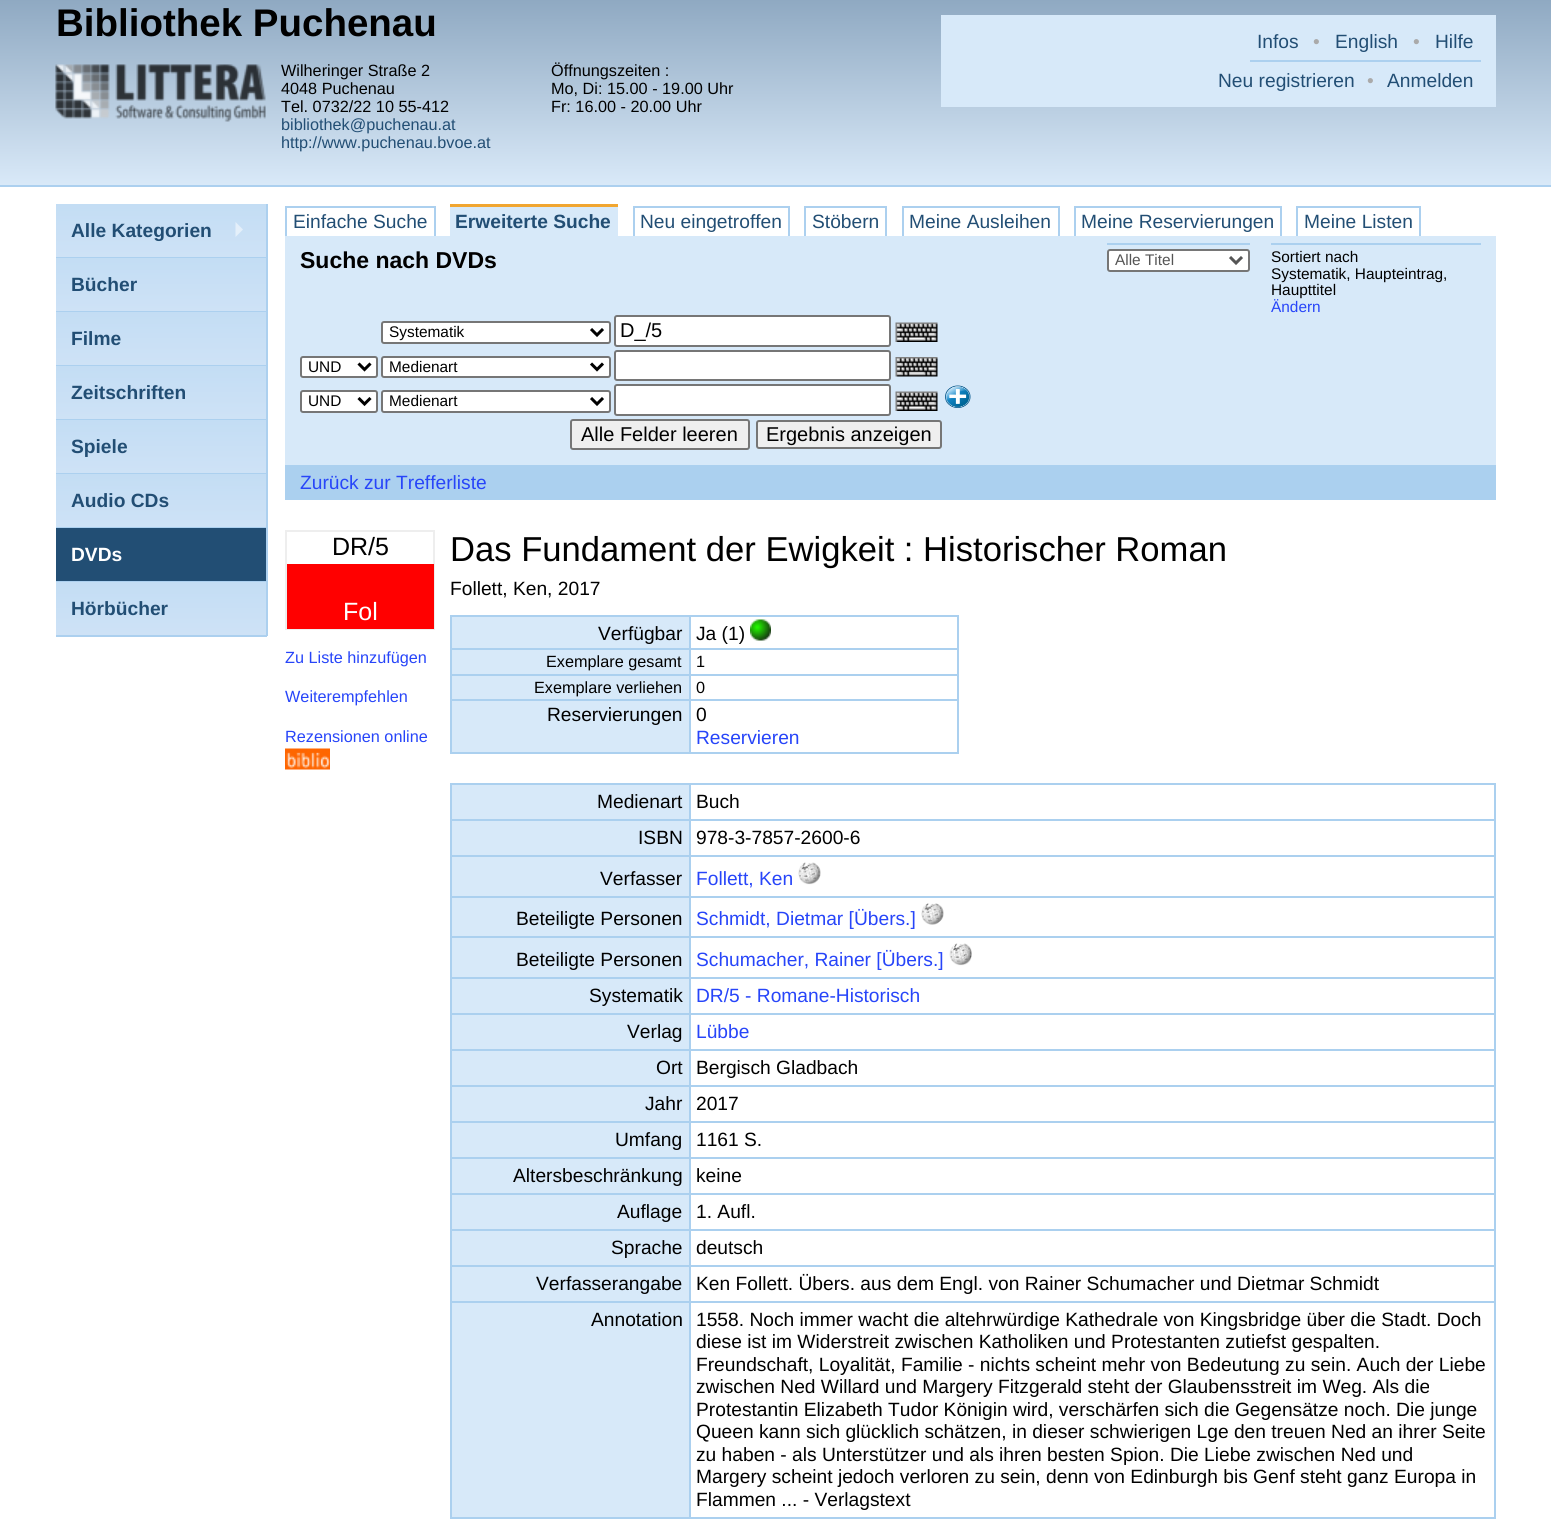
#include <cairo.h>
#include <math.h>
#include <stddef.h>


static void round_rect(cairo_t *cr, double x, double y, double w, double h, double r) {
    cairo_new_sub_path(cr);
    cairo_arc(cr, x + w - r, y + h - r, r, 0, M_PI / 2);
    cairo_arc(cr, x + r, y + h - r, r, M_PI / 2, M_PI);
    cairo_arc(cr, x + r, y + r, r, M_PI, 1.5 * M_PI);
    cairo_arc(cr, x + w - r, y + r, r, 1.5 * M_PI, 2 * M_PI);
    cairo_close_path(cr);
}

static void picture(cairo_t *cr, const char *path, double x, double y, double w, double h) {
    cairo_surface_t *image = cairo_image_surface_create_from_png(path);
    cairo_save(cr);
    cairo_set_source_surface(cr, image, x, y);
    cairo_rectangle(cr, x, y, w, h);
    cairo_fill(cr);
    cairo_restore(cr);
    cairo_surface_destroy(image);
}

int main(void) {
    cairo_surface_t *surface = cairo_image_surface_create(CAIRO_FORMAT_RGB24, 1551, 1521);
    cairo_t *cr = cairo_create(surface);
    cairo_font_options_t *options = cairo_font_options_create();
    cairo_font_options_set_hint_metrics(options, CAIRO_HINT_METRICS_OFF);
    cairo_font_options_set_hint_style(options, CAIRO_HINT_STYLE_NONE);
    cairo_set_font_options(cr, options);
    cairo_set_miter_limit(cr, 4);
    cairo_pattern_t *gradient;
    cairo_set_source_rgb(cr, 1, 1, 1);
    cairo_paint(cr);
    gradient = cairo_pattern_create_linear(776, 0, 776, 185);
    cairo_pattern_add_color_stop_rgba(gradient, 0, 0.561, 0.663, 0.761, 1);
    cairo_pattern_add_color_stop_rgba(gradient, 1, 0.851, 0.914, 0.973, 1);
    cairo_set_source(cr, gradient);
    cairo_pattern_destroy(gradient);
    cairo_rectangle(cr, 0, 0, 1551, 185);
    cairo_fill(cr);
    cairo_set_source_rgb(cr, 0.675, 0.816, 0.937);
    cairo_rectangle(cr, 0, 185, 1551, 2);
    cairo_fill(cr);
    cairo_select_font_face(cr, "Liberation Sans", CAIRO_FONT_SLANT_NORMAL, CAIRO_FONT_WEIGHT_BOLD);
    cairo_set_font_size(cr, 38.5);
    cairo_set_source_rgb(cr, 0, 0, 0);
    cairo_move_to(cr, 56, 36);
    cairo_show_text(cr, "Bibliothek Puchenau");
    picture(cr, "img1.png", 55, 64, 211, 58);
    cairo_select_font_face(cr, "Liberation Sans", CAIRO_FONT_SLANT_NORMAL, CAIRO_FONT_WEIGHT_NORMAL);
    cairo_set_font_size(cr, 16.25);
    cairo_move_to(cr, 281, 76);
    cairo_show_text(cr, "Wilheringer Straße 2");
    cairo_move_to(cr, 281, 94);
    cairo_show_text(cr, "4048 Puchenau");
    cairo_move_to(cr, 281, 112);
    cairo_show_text(cr, "Tel. 0732/22 10 55-412");
    cairo_set_source_rgb(cr, 0.133, 0.306, 0.455);
    cairo_move_to(cr, 281, 130);
    cairo_show_text(cr, "bibliothek@puchenau.at");
    cairo_move_to(cr, 281, 148);
    cairo_show_text(cr, "http://www.puchenau.bvoe.at");
    cairo_set_source_rgb(cr, 0, 0, 0);
    cairo_move_to(cr, 551, 76);
    cairo_show_text(cr, "Öffnungszeiten :");
    cairo_move_to(cr, 551, 94);
    cairo_show_text(cr, "Mo, Di: 15.00 - 19.00 Uhr");
    cairo_move_to(cr, 551, 112);
    cairo_show_text(cr, "Fr: 16.00 - 20.00 Uhr");
    cairo_set_source_rgb(cr, 0.843, 0.914, 0.973);
    cairo_rectangle(cr, 941, 15, 555, 92);
    cairo_fill(cr);
    cairo_set_font_size(cr, 19.2);
    cairo_set_source_rgb(cr, 0.133, 0.306, 0.455);
    cairo_move_to(cr, 1257, 48);
    cairo_show_text(cr, "Infos");
    cairo_set_source_rgb(cr, 0.667, 0.667, 0.667);
    cairo_move_to(cr, 1313, 48);
    cairo_show_text(cr, "•");
    cairo_set_source_rgb(cr, 0.133, 0.306, 0.455);
    cairo_move_to(cr, 1335, 48);
    cairo_show_text(cr, "English");
    cairo_set_source_rgb(cr, 0.667, 0.667, 0.667);
    cairo_move_to(cr, 1413, 48);
    cairo_show_text(cr, "•");
    cairo_set_source_rgb(cr, 0.675, 0.816, 0.937);
    cairo_rectangle(cr, 1250, 60, 231, 2);
    cairo_fill(cr);
    cairo_set_source_rgb(cr, 0.133, 0.306, 0.455);
    cairo_move_to(cr, 1435, 48);
    cairo_show_text(cr, "Hilfe");
    cairo_move_to(cr, 1218, 87);
    cairo_show_text(cr, "Neu registrieren");
    cairo_set_source_rgb(cr, 0.667, 0.667, 0.667);
    cairo_move_to(cr, 1367, 87);
    cairo_show_text(cr, "•");
    cairo_set_source_rgb(cr, 0.133, 0.306, 0.455);
    cairo_move_to(cr, 1387, 87);
    cairo_show_text(cr, "Anmelden");
    gradient = cairo_pattern_create_linear(161, 204, 161, 257);
    cairo_pattern_add_color_stop_rgba(gradient, 0, 0.765, 0.867, 0.957, 1);
    cairo_pattern_add_color_stop_rgba(gradient, 1, 0.808, 0.886, 0.965, 1);
    cairo_set_source(cr, gradient);
    cairo_pattern_destroy(gradient);
    cairo_rectangle(cr, 56, 204, 210, 53);
    cairo_fill(cr);
    cairo_set_source_rgb(cr, 0.675, 0.816, 0.937);
    cairo_rectangle(cr, 266, 204, 2, 432);
    cairo_fill(cr);
    cairo_rectangle(cr, 56, 257, 211, 1);
    cairo_fill(cr);
    cairo_select_font_face(cr, "Liberation Sans", CAIRO_FONT_SLANT_NORMAL, CAIRO_FONT_WEIGHT_BOLD);
    cairo_set_source_rgb(cr, 0.133, 0.306, 0.455);
    cairo_move_to(cr, 71, 237);
    cairo_show_text(cr, "Alle Kategorien");
    cairo_set_source_rgba(cr, 1, 1, 1, 0.5);
    cairo_new_path(cr);
    cairo_move_to(cr, 235.5, 237);
    cairo_line_to(cr, 235.5, 222);
    cairo_line_to(cr, 243, 229.5);
    cairo_close_path(cr);
    cairo_fill(cr);
    gradient = cairo_pattern_create_linear(161, 258, 161, 311);
    cairo_pattern_add_color_stop_rgba(gradient, 0, 0.765, 0.867, 0.957, 1);
    cairo_pattern_add_color_stop_rgba(gradient, 1, 0.808, 0.886, 0.965, 1);
    cairo_set_source(cr, gradient);
    cairo_pattern_destroy(gradient);
    cairo_rectangle(cr, 56, 258, 210, 53);
    cairo_fill(cr);
    cairo_set_source_rgb(cr, 0.675, 0.816, 0.937);
    cairo_rectangle(cr, 56, 311, 211, 1);
    cairo_fill(cr);
    cairo_set_source_rgb(cr, 0.133, 0.306, 0.455);
    cairo_move_to(cr, 71, 291);
    cairo_show_text(cr, "Bücher");
    gradient = cairo_pattern_create_linear(161, 312, 161, 365);
    cairo_pattern_add_color_stop_rgba(gradient, 0, 0.765, 0.867, 0.957, 1);
    cairo_pattern_add_color_stop_rgba(gradient, 1, 0.808, 0.886, 0.965, 1);
    cairo_set_source(cr, gradient);
    cairo_pattern_destroy(gradient);
    cairo_rectangle(cr, 56, 312, 210, 53);
    cairo_fill(cr);
    cairo_set_source_rgb(cr, 0.675, 0.816, 0.937);
    cairo_rectangle(cr, 56, 365, 211, 1);
    cairo_fill(cr);
    cairo_set_source_rgb(cr, 0.133, 0.306, 0.455);
    cairo_move_to(cr, 71, 345);
    cairo_show_text(cr, "Filme");
    gradient = cairo_pattern_create_linear(161, 366, 161, 419);
    cairo_pattern_add_color_stop_rgba(gradient, 0, 0.765, 0.867, 0.957, 1);
    cairo_pattern_add_color_stop_rgba(gradient, 1, 0.808, 0.886, 0.965, 1);
    cairo_set_source(cr, gradient);
    cairo_pattern_destroy(gradient);
    cairo_rectangle(cr, 56, 366, 210, 53);
    cairo_fill(cr);
    cairo_set_source_rgb(cr, 0.675, 0.816, 0.937);
    cairo_rectangle(cr, 56, 419, 211, 1);
    cairo_fill(cr);
    cairo_set_source_rgb(cr, 0.133, 0.306, 0.455);
    cairo_move_to(cr, 71, 399);
    cairo_show_text(cr, "Zeitschriften");
    gradient = cairo_pattern_create_linear(161, 420, 161, 473);
    cairo_pattern_add_color_stop_rgba(gradient, 0, 0.765, 0.867, 0.957, 1);
    cairo_pattern_add_color_stop_rgba(gradient, 1, 0.808, 0.886, 0.965, 1);
    cairo_set_source(cr, gradient);
    cairo_pattern_destroy(gradient);
    cairo_rectangle(cr, 56, 420, 210, 53);
    cairo_fill(cr);
    cairo_set_source_rgb(cr, 0.675, 0.816, 0.937);
    cairo_rectangle(cr, 56, 473, 211, 1);
    cairo_fill(cr);
    cairo_set_source_rgb(cr, 0.133, 0.306, 0.455);
    cairo_move_to(cr, 71, 453);
    cairo_show_text(cr, "Spiele");
    gradient = cairo_pattern_create_linear(161, 474, 161, 527);
    cairo_pattern_add_color_stop_rgba(gradient, 0, 0.765, 0.867, 0.957, 1);
    cairo_pattern_add_color_stop_rgba(gradient, 1, 0.808, 0.886, 0.965, 1);
    cairo_set_source(cr, gradient);
    cairo_pattern_destroy(gradient);
    cairo_rectangle(cr, 56, 474, 210, 53);
    cairo_fill(cr);
    cairo_set_source_rgb(cr, 0.675, 0.816, 0.937);
    cairo_rectangle(cr, 56, 527, 211, 1);
    cairo_fill(cr);
    cairo_set_source_rgb(cr, 0.133, 0.306, 0.455);
    cairo_move_to(cr, 71, 507);
    cairo_show_text(cr, "Audio CDs");
    cairo_rectangle(cr, 56, 528, 210, 53);
    cairo_fill(cr);
    cairo_set_source_rgb(cr, 0.675, 0.816, 0.937);
    cairo_rectangle(cr, 56, 581, 211, 1);
    cairo_fill(cr);
    cairo_set_source_rgb(cr, 1, 1, 1);
    cairo_move_to(cr, 71, 561);
    cairo_show_text(cr, "DVDs");
    gradient = cairo_pattern_create_linear(161, 582, 161, 635);
    cairo_pattern_add_color_stop_rgba(gradient, 0, 0.765, 0.867, 0.957, 1);
    cairo_pattern_add_color_stop_rgba(gradient, 1, 0.808, 0.886, 0.965, 1);
    cairo_set_source(cr, gradient);
    cairo_pattern_destroy(gradient);
    cairo_rectangle(cr, 56, 582, 210, 53);
    cairo_fill(cr);
    cairo_set_source_rgb(cr, 0.675, 0.816, 0.937);
    cairo_rectangle(cr, 56, 635, 211, 2);
    cairo_fill(cr);
    cairo_set_source_rgb(cr, 0.133, 0.306, 0.455);
    cairo_move_to(cr, 71, 615);
    cairo_show_text(cr, "Hörbücher");
    cairo_set_source_rgb(cr, 0.675, 0.816, 0.937);
    cairo_rectangle(cr, 285, 206, 150, 2);
    cairo_fill(cr);
    cairo_rectangle(cr, 434, 206, 2, 30);
    cairo_fill(cr);
    cairo_rectangle(cr, 285, 206, 2, 30);
    cairo_fill(cr);
    cairo_select_font_face(cr, "Liberation Sans", CAIRO_FONT_SLANT_NORMAL, CAIRO_FONT_WEIGHT_NORMAL);
    cairo_set_source_rgb(cr, 0.133, 0.306, 0.455);
    cairo_move_to(cr, 293, 228);
    cairo_show_text(cr, "Einfache Suche");
    cairo_set_source_rgb(cr, 0.843, 0.914, 0.973);
    cairo_rectangle(cr, 450, 207, 168, 29);
    cairo_fill(cr);
    cairo_set_source_rgb(cr, 0.945, 0.651, 0.188);
    cairo_rectangle(cr, 450, 204, 168, 3);
    cairo_fill(cr);
    cairo_select_font_face(cr, "Liberation Sans", CAIRO_FONT_SLANT_NORMAL, CAIRO_FONT_WEIGHT_BOLD);
    cairo_set_source_rgb(cr, 0.133, 0.306, 0.455);
    cairo_move_to(cr, 455, 228);
    cairo_show_text(cr, "Erweiterte Suche");
    cairo_set_source_rgb(cr, 0.675, 0.816, 0.937);
    cairo_rectangle(cr, 633, 206, 156, 2);
    cairo_fill(cr);
    cairo_rectangle(cr, 788, 206, 2, 30);
    cairo_fill(cr);
    cairo_rectangle(cr, 633, 206, 2, 30);
    cairo_fill(cr);
    cairo_select_font_face(cr, "Liberation Sans", CAIRO_FONT_SLANT_NORMAL, CAIRO_FONT_WEIGHT_NORMAL);
    cairo_set_source_rgb(cr, 0.133, 0.306, 0.455);
    cairo_move_to(cr, 640, 228);
    cairo_show_text(cr, "Neu eingetroffen");
    cairo_set_source_rgb(cr, 0.675, 0.816, 0.937);
    cairo_rectangle(cr, 804, 206, 83, 2);
    cairo_fill(cr);
    cairo_rectangle(cr, 885, 206, 2, 30);
    cairo_fill(cr);
    cairo_rectangle(cr, 804, 206, 2, 30);
    cairo_fill(cr);
    cairo_set_source_rgb(cr, 0.133, 0.306, 0.455);
    cairo_move_to(cr, 812, 228);
    cairo_show_text(cr, "Stöbern");
    cairo_set_source_rgb(cr, 0.675, 0.816, 0.937);
    cairo_rectangle(cr, 902, 206, 157, 2);
    cairo_fill(cr);
    cairo_rectangle(cr, 1058, 206, 2, 30);
    cairo_fill(cr);
    cairo_rectangle(cr, 902, 206, 2, 30);
    cairo_fill(cr);
    cairo_set_source_rgb(cr, 0.133, 0.306, 0.455);
    cairo_move_to(cr, 909, 228);
    cairo_show_text(cr, "Meine Ausleihen");
    cairo_set_source_rgb(cr, 0.675, 0.816, 0.937);
    cairo_rectangle(cr, 1074, 206, 207, 2);
    cairo_fill(cr);
    cairo_rectangle(cr, 1280, 206, 2, 30);
    cairo_fill(cr);
    cairo_rectangle(cr, 1074, 206, 2, 30);
    cairo_fill(cr);
    cairo_set_source_rgb(cr, 0.133, 0.306, 0.455);
    cairo_move_to(cr, 1081, 228);
    cairo_show_text(cr, "Meine Reservierungen");
    cairo_set_source_rgb(cr, 0.675, 0.816, 0.937);
    cairo_rectangle(cr, 1296, 206, 125, 2);
    cairo_fill(cr);
    cairo_rectangle(cr, 1419, 206, 2, 30);
    cairo_fill(cr);
    cairo_rectangle(cr, 1296, 206, 2, 30);
    cairo_fill(cr);
    cairo_set_source_rgb(cr, 0.133, 0.306, 0.455);
    cairo_move_to(cr, 1304, 228);
    cairo_show_text(cr, "Meine Listen");
    cairo_set_source_rgb(cr, 0.843, 0.914, 0.973);
    cairo_rectangle(cr, 285, 236, 1211, 229);
    cairo_fill(cr);
    cairo_set_source_rgb(cr, 0.671, 0.816, 0.937);
    cairo_rectangle(cr, 1107, 243, 143, 2);
    cairo_fill(cr);
    cairo_set_source_rgb(cr, 1, 1, 1);
    round_rect(cr, 1108, 250, 141, 21, 2);
    cairo_fill_preserve(cr);
    cairo_set_source_rgb(cr, 0.463, 0.463, 0.463);
    cairo_stroke(cr);
    cairo_new_path(cr);
    cairo_move_to(cr, 1230, 257);
    cairo_line_to(cr, 1236, 263);
    cairo_line_to(cr, 1242, 257);
    cairo_set_source_rgb(cr, 0.333, 0.333, 0.333);
    cairo_set_line_width(cr, 3);
    cairo_stroke(cr);
    cairo_set_font_size(cr, 15.4);
    cairo_move_to(cr, 1115, 265);
    cairo_show_text(cr, "Alle Titel");
    cairo_set_source_rgb(cr, 0.671, 0.816, 0.937);
    cairo_rectangle(cr, 1271, 243, 210, 2);
    cairo_fill(cr);
    cairo_set_source_rgb(cr, 0, 0, 0);
    cairo_move_to(cr, 1271, 262);
    cairo_show_text(cr, "Sortiert nach");
    cairo_move_to(cr, 1271, 279);
    cairo_show_text(cr, "Systematik, Haupteintrag,");
    cairo_move_to(cr, 1271, 295);
    cairo_show_text(cr, "Haupttitel");
    cairo_set_source_rgb(cr, 0.153, 0.271, 0.976);
    cairo_move_to(cr, 1271, 312);
    cairo_show_text(cr, "Ändern");
    cairo_set_source_rgb(cr, 1, 1, 1);
    round_rect(cr, 382, 322, 228, 21, 2);
    cairo_fill_preserve(cr);
    cairo_set_source_rgb(cr, 0.463, 0.463, 0.463);
    cairo_set_line_width(cr, 2);
    cairo_stroke(cr);
    cairo_new_path(cr);
    cairo_move_to(cr, 591, 329);
    cairo_line_to(cr, 597, 335);
    cairo_line_to(cr, 603, 329);
    cairo_set_source_rgb(cr, 0, 0, 0);
    cairo_set_line_width(cr, 3);
    cairo_stroke(cr);
    cairo_move_to(cr, 389, 337);
    cairo_show_text(cr, "Systematik");
    cairo_set_source_rgb(cr, 1, 1, 1);
    round_rect(cr, 615, 316, 275, 30, 2);
    cairo_fill_preserve(cr);
    cairo_set_source_rgb(cr, 0.463, 0.463, 0.463);
    cairo_set_line_width(cr, 2);
    cairo_stroke(cr);
    cairo_set_font_size(cr, 20);
    cairo_set_source_rgb(cr, 0, 0, 0);
    cairo_move_to(cr, 620, 337);
    cairo_show_text(cr, "D_/5");
    picture(cr, "img2.png", 895, 322, 43, 20);
    cairo_set_source_rgb(cr, 1, 1, 1);
    round_rect(cr, 301, 357, 76, 20, 2);
    cairo_fill_preserve(cr);
    cairo_set_source_rgb(cr, 0.463, 0.463, 0.463);
    cairo_stroke(cr);
    cairo_new_path(cr);
    cairo_move_to(cr, 358.5, 363.5);
    cairo_line_to(cr, 364.5, 369.5);
    cairo_line_to(cr, 370.5, 363.5);
    cairo_set_source_rgb(cr, 0, 0, 0);
    cairo_set_line_width(cr, 3);
    cairo_stroke(cr);
    cairo_set_font_size(cr, 15.4);
    cairo_move_to(cr, 308, 372);
    cairo_show_text(cr, "UND");
    cairo_set_source_rgb(cr, 1, 1, 1);
    round_rect(cr, 382, 357, 228, 20, 2);
    cairo_fill_preserve(cr);
    cairo_set_source_rgb(cr, 0.463, 0.463, 0.463);
    cairo_set_line_width(cr, 2);
    cairo_stroke(cr);
    cairo_new_path(cr);
    cairo_move_to(cr, 591, 363.5);
    cairo_line_to(cr, 597, 369.5);
    cairo_line_to(cr, 603, 363.5);
    cairo_set_source_rgb(cr, 0, 0, 0);
    cairo_set_line_width(cr, 3);
    cairo_stroke(cr);
    cairo_move_to(cr, 389, 372);
    cairo_show_text(cr, "Medienart");
    cairo_set_source_rgb(cr, 1, 1, 1);
    round_rect(cr, 615, 351, 275, 29, 2);
    cairo_fill_preserve(cr);
    cairo_set_source_rgb(cr, 0.463, 0.463, 0.463);
    cairo_set_line_width(cr, 2);
    cairo_stroke(cr);
    picture(cr, "img3.png", 895, 357, 43, 20);
    cairo_set_source_rgb(cr, 1, 1, 1);
    round_rect(cr, 301, 391, 76, 21, 2);
    cairo_fill_preserve(cr);
    cairo_set_source_rgb(cr, 0.463, 0.463, 0.463);
    cairo_stroke(cr);
    cairo_new_path(cr);
    cairo_move_to(cr, 358.5, 398);
    cairo_line_to(cr, 364.5, 404);
    cairo_line_to(cr, 370.5, 398);
    cairo_set_source_rgb(cr, 0, 0, 0);
    cairo_set_line_width(cr, 3);
    cairo_stroke(cr);
    cairo_move_to(cr, 308, 406);
    cairo_show_text(cr, "UND");
    cairo_set_source_rgb(cr, 1, 1, 1);
    round_rect(cr, 382, 391, 228, 21, 2);
    cairo_fill_preserve(cr);
    cairo_set_source_rgb(cr, 0.463, 0.463, 0.463);
    cairo_set_line_width(cr, 2);
    cairo_stroke(cr);
    cairo_new_path(cr);
    cairo_move_to(cr, 591, 398);
    cairo_line_to(cr, 597, 404);
    cairo_line_to(cr, 603, 398);
    cairo_set_source_rgb(cr, 0, 0, 0);
    cairo_set_line_width(cr, 3);
    cairo_stroke(cr);
    cairo_move_to(cr, 389, 406);
    cairo_show_text(cr, "Medienart");
    cairo_set_source_rgb(cr, 1, 1, 1);
    round_rect(cr, 615, 385, 275, 30, 2);
    cairo_fill_preserve(cr);
    cairo_set_source_rgb(cr, 0.463, 0.463, 0.463);
    cairo_set_line_width(cr, 2);
    cairo_stroke(cr);
    picture(cr, "img2.png", 895, 391, 43, 20);
    picture(cr, "img4.png", 945, 385, 26, 23);
    cairo_set_source_rgb(cr, 0.937, 0.937, 0.937);
    round_rect(cr, 571, 420, 178, 29, 2);
    cairo_fill_preserve(cr);
    cairo_set_source_rgb(cr, 0.463, 0.463, 0.463);
    cairo_stroke(cr);
    cairo_set_font_size(cr, 20);
    cairo_set_source_rgb(cr, 0, 0, 0);
    cairo_move_to(cr, 581, 441);
    cairo_show_text(cr, "Alle Felder leeren");
    cairo_set_source_rgb(cr, 0.937, 0.937, 0.937);
    round_rect(cr, 757, 421, 184, 27, 2);
    cairo_fill_preserve(cr);
    cairo_set_source_rgb(cr, 0.463, 0.463, 0.463);
    cairo_stroke(cr);
    cairo_set_source_rgb(cr, 0, 0, 0);
    cairo_move_to(cr, 766, 441);
    cairo_show_text(cr, "Ergebnis anzeigen");
    cairo_select_font_face(cr, "Liberation Sans", CAIRO_FONT_SLANT_NORMAL, CAIRO_FONT_WEIGHT_BOLD);
    cairo_set_font_size(cr, 23);
    cairo_move_to(cr, 300, 268);
    cairo_show_text(cr, "Suche nach DVDs");
    cairo_set_source_rgb(cr, 0.671, 0.816, 0.937);
    cairo_rectangle(cr, 285, 465, 1211, 35);
    cairo_fill(cr);
    cairo_select_font_face(cr, "Liberation Sans", CAIRO_FONT_SLANT_NORMAL, CAIRO_FONT_WEIGHT_NORMAL);
    cairo_set_font_size(cr, 19.2);
    cairo_set_source_rgb(cr, 0.153, 0.271, 0.976);
    cairo_move_to(cr, 300, 489);
    cairo_show_text(cr, "Zurück zur Trefferliste");
    cairo_rectangle(cr, 286, 531, 148, 98);
    cairo_set_source_rgb(cr, 0.933, 0.933, 0.933);
    cairo_stroke(cr);
    cairo_set_font_size(cr, 25);
    cairo_set_source_rgb(cr, 0, 0, 0);
    cairo_move_to(cr, 332, 555);
    cairo_show_text(cr, "DR/5");
    cairo_set_source_rgb(cr, 1, 0, 0);
    cairo_rectangle(cr, 287, 564, 147, 65);
    cairo_fill(cr);
    cairo_set_source_rgb(cr, 1, 1, 1);
    cairo_move_to(cr, 343, 620);
    cairo_show_text(cr, "Fol");
    cairo_set_font_size(cr, 16.25);
    cairo_set_source_rgb(cr, 0.153, 0.271, 0.976);
    cairo_move_to(cr, 285, 663);
    cairo_show_text(cr, "Zu Liste hinzufügen");
    cairo_move_to(cr, 285, 702);
    cairo_show_text(cr, "Weiterempfehlen");
    cairo_move_to(cr, 285, 742);
    cairo_show_text(cr, "Rezensionen online");
    picture(cr, "img5.png", 285, 748, 45, 22);
    cairo_set_font_size(cr, 34.6);
    cairo_set_source_rgb(cr, 0, 0, 0);
    cairo_move_to(cr, 450, 561);
    cairo_show_text(cr, "Das Fundament der Ewigkeit : Historischer Roman");
    cairo_set_font_size(cr, 19.2);
    cairo_move_to(cr, 450, 595);
    cairo_show_text(cr, "Follett, Ken, 2017");
    cairo_set_source_rgb(cr, 0.843, 0.914, 0.973);
    cairo_rectangle(cr, 452, 617, 237, 31);
    cairo_fill(cr);
    cairo_set_source_rgb(cr, 0.671, 0.816, 0.937);
    cairo_rectangle(cr, 689, 615, 270, 2);
    cairo_fill(cr);
    cairo_rectangle(cr, 689, 648, 270, 2);
    cairo_fill(cr);
    cairo_rectangle(cr, 689, 674, 270, 2);
    cairo_fill(cr);
    cairo_rectangle(cr, 689, 699, 270, 2);
    cairo_fill(cr);
    cairo_rectangle(cr, 957, 699, 2, 54);
    cairo_fill(cr);
    cairo_rectangle(cr, 689, 752, 270, 2);
    cairo_fill(cr);
    cairo_rectangle(cr, 689, 699, 2, 54);
    cairo_fill(cr);
    cairo_rectangle(cr, 450, 699, 240, 2);
    cairo_fill(cr);
    cairo_rectangle(cr, 689, 674, 2, 27);
    cairo_fill(cr);
    cairo_rectangle(cr, 450, 674, 240, 2);
    cairo_fill(cr);
    cairo_rectangle(cr, 689, 648, 2, 27);
    cairo_fill(cr);
    cairo_rectangle(cr, 450, 648, 240, 2);
    cairo_fill(cr);
    cairo_rectangle(cr, 689, 615, 2, 35);
    cairo_fill(cr);
    cairo_rectangle(cr, 450, 615, 240, 2);
    cairo_fill(cr);
    cairo_rectangle(cr, 450, 752, 240, 2);
    cairo_fill(cr);
    cairo_rectangle(cr, 450, 699, 2, 54);
    cairo_fill(cr);
    cairo_rectangle(cr, 450, 674, 2, 27);
    cairo_fill(cr);
    cairo_rectangle(cr, 450, 648, 2, 27);
    cairo_fill(cr);
    cairo_rectangle(cr, 450, 615, 2, 35);
    cairo_fill(cr);
    cairo_set_source_rgb(cr, 0, 0, 0);
    cairo_move_to(cr, 598, 640);
    cairo_show_text(cr, "Verfügbar");
    cairo_set_source_rgb(cr, 0.671, 0.816, 0.937);
    cairo_rectangle(cr, 957, 674, 2, 27);
    cairo_fill(cr);
    cairo_rectangle(cr, 957, 648, 2, 27);
    cairo_fill(cr);
    cairo_rectangle(cr, 957, 615, 2, 35);
    cairo_fill(cr);
    cairo_set_source_rgb(cr, 0, 0, 0);
    cairo_move_to(cr, 696, 640);
    cairo_show_text(cr, "Ja (1)");
    picture(cr, "img6.png", 750, 619, 21, 22);
    cairo_set_source_rgb(cr, 0.843, 0.914, 0.973);
    cairo_rectangle(cr, 452, 650, 237, 24);
    cairo_fill(cr);
    cairo_set_font_size(cr, 16.25);
    cairo_set_source_rgb(cr, 0, 0, 0);
    cairo_move_to(cr, 546, 667);
    cairo_show_text(cr, "Exemplare gesamt");
    cairo_move_to(cr, 696, 667);
    cairo_show_text(cr, "1");
    cairo_set_source_rgb(cr, 0.843, 0.914, 0.973);
    cairo_rectangle(cr, 452, 676, 237, 23);
    cairo_fill(cr);
    cairo_set_source_rgb(cr, 0, 0, 0);
    cairo_move_to(cr, 534, 693);
    cairo_show_text(cr, "Exemplare verliehen");
    cairo_move_to(cr, 696, 693);
    cairo_show_text(cr, "0");
    cairo_set_source_rgb(cr, 0.843, 0.914, 0.973);
    cairo_rectangle(cr, 452, 701, 237, 51);
    cairo_fill(cr);
    cairo_set_font_size(cr, 19.2);
    cairo_set_source_rgb(cr, 0, 0, 0);
    cairo_move_to(cr, 547, 721);
    cairo_show_text(cr, "Reservierungen");
    cairo_move_to(cr, 696, 721);
    cairo_show_text(cr, "0");
    cairo_set_source_rgb(cr, 0.153, 0.271, 0.976);
    cairo_move_to(cr, 696, 744);
    cairo_show_text(cr, "Reservieren");
    cairo_set_source_rgb(cr, 0.843, 0.914, 0.973);
    cairo_rectangle(cr, 452, 785, 237, 34);
    cairo_fill(cr);
    cairo_set_source_rgb(cr, 0.671, 0.816, 0.937);
    cairo_rectangle(cr, 689, 783, 807, 2);
    cairo_fill(cr);
    cairo_rectangle(cr, 689, 819, 807, 2);
    cairo_fill(cr);
    cairo_rectangle(cr, 689, 855, 807, 2);
    cairo_fill(cr);
    cairo_rectangle(cr, 689, 896, 807, 2);
    cairo_fill(cr);
    cairo_rectangle(cr, 689, 936, 807, 2);
    cairo_fill(cr);
    cairo_rectangle(cr, 689, 977, 807, 2);
    cairo_fill(cr);
    cairo_rectangle(cr, 689, 1013, 807, 2);
    cairo_fill(cr);
    cairo_rectangle(cr, 689, 1049, 807, 2);
    cairo_fill(cr);
    cairo_rectangle(cr, 689, 1085, 807, 2);
    cairo_fill(cr);
    cairo_rectangle(cr, 689, 1121, 807, 2);
    cairo_fill(cr);
    cairo_rectangle(cr, 689, 1157, 807, 2);
    cairo_fill(cr);
    cairo_rectangle(cr, 689, 1193, 807, 2);
    cairo_fill(cr);
    cairo_rectangle(cr, 689, 1229, 807, 2);
    cairo_fill(cr);
    cairo_rectangle(cr, 689, 1265, 807, 2);
    cairo_fill(cr);
    cairo_rectangle(cr, 689, 1301, 807, 2);
    cairo_fill(cr);
    cairo_rectangle(cr, 1494, 1301, 2, 217);
    cairo_fill(cr);
    cairo_rectangle(cr, 689, 1517, 807, 2);
    cairo_fill(cr);
    cairo_rectangle(cr, 689, 1301, 2, 217);
    cairo_fill(cr);
    cairo_rectangle(cr, 450, 1301, 240, 2);
    cairo_fill(cr);
    cairo_rectangle(cr, 689, 1265, 2, 37);
    cairo_fill(cr);
    cairo_rectangle(cr, 450, 1265, 240, 2);
    cairo_fill(cr);
    cairo_rectangle(cr, 689, 1229, 2, 37);
    cairo_fill(cr);
    cairo_rectangle(cr, 450, 1229, 240, 2);
    cairo_fill(cr);
    cairo_rectangle(cr, 689, 1193, 2, 37);
    cairo_fill(cr);
    cairo_rectangle(cr, 450, 1193, 240, 2);
    cairo_fill(cr);
    cairo_rectangle(cr, 689, 1157, 2, 37);
    cairo_fill(cr);
    cairo_rectangle(cr, 450, 1157, 240, 2);
    cairo_fill(cr);
    cairo_rectangle(cr, 689, 1121, 2, 37);
    cairo_fill(cr);
    cairo_rectangle(cr, 450, 1121, 240, 2);
    cairo_fill(cr);
    cairo_rectangle(cr, 689, 1085, 2, 37);
    cairo_fill(cr);
    cairo_rectangle(cr, 450, 1085, 240, 2);
    cairo_fill(cr);
    cairo_rectangle(cr, 689, 1049, 2, 37);
    cairo_fill(cr);
    cairo_rectangle(cr, 450, 1049, 240, 2);
    cairo_fill(cr);
    cairo_rectangle(cr, 689, 1013, 2, 37);
    cairo_fill(cr);
    cairo_rectangle(cr, 450, 1013, 240, 2);
    cairo_fill(cr);
    cairo_rectangle(cr, 689, 977, 2, 37);
    cairo_fill(cr);
    cairo_rectangle(cr, 450, 977, 240, 2);
    cairo_fill(cr);
    cairo_rectangle(cr, 689, 936, 2, 42);
    cairo_fill(cr);
    cairo_rectangle(cr, 450, 936, 240, 2);
    cairo_fill(cr);
    cairo_rectangle(cr, 689, 896, 2, 42);
    cairo_fill(cr);
    cairo_rectangle(cr, 450, 896, 240, 2);
    cairo_fill(cr);
    cairo_rectangle(cr, 689, 855, 2, 42);
    cairo_fill(cr);
    cairo_rectangle(cr, 450, 855, 240, 2);
    cairo_fill(cr);
    cairo_rectangle(cr, 689, 819, 2, 38);
    cairo_fill(cr);
    cairo_rectangle(cr, 450, 819, 240, 2);
    cairo_fill(cr);
    cairo_rectangle(cr, 689, 783, 2, 38);
    cairo_fill(cr);
    cairo_rectangle(cr, 450, 783, 240, 2);
    cairo_fill(cr);
    cairo_rectangle(cr, 450, 1517, 240, 2);
    cairo_fill(cr);
    cairo_rectangle(cr, 450, 1301, 2, 217);
    cairo_fill(cr);
    cairo_rectangle(cr, 450, 1265, 2, 37);
    cairo_fill(cr);
    cairo_rectangle(cr, 450, 1229, 2, 37);
    cairo_fill(cr);
    cairo_rectangle(cr, 450, 1193, 2, 37);
    cairo_fill(cr);
    cairo_rectangle(cr, 450, 1157, 2, 37);
    cairo_fill(cr);
    cairo_rectangle(cr, 450, 1121, 2, 37);
    cairo_fill(cr);
    cairo_rectangle(cr, 450, 1085, 2, 37);
    cairo_fill(cr);
    cairo_rectangle(cr, 450, 1049, 2, 37);
    cairo_fill(cr);
    cairo_rectangle(cr, 450, 1013, 2, 37);
    cairo_fill(cr);
    cairo_rectangle(cr, 450, 977, 2, 37);
    cairo_fill(cr);
    cairo_rectangle(cr, 450, 936, 2, 42);
    cairo_fill(cr);
    cairo_rectangle(cr, 450, 896, 2, 42);
    cairo_fill(cr);
    cairo_rectangle(cr, 450, 855, 2, 42);
    cairo_fill(cr);
    cairo_rectangle(cr, 450, 819, 2, 38);
    cairo_fill(cr);
    cairo_rectangle(cr, 450, 783, 2, 38);
    cairo_fill(cr);
    cairo_set_source_rgb(cr, 0, 0, 0);
    cairo_move_to(cr, 597, 808);
    cairo_show_text(cr, "Medienart");
    cairo_set_source_rgb(cr, 0.671, 0.816, 0.937);
    cairo_rectangle(cr, 1494, 1265, 2, 37);
    cairo_fill(cr);
    cairo_rectangle(cr, 1494, 1229, 2, 37);
    cairo_fill(cr);
    cairo_rectangle(cr, 1494, 1193, 2, 37);
    cairo_fill(cr);
    cairo_rectangle(cr, 1494, 1157, 2, 37);
    cairo_fill(cr);
    cairo_rectangle(cr, 1494, 1121, 2, 37);
    cairo_fill(cr);
    cairo_rectangle(cr, 1494, 1085, 2, 37);
    cairo_fill(cr);
    cairo_rectangle(cr, 1494, 1049, 2, 37);
    cairo_fill(cr);
    cairo_rectangle(cr, 1494, 1013, 2, 37);
    cairo_fill(cr);
    cairo_rectangle(cr, 1494, 977, 2, 37);
    cairo_fill(cr);
    cairo_rectangle(cr, 1494, 936, 2, 42);
    cairo_fill(cr);
    cairo_rectangle(cr, 1494, 896, 2, 42);
    cairo_fill(cr);
    cairo_rectangle(cr, 1494, 855, 2, 42);
    cairo_fill(cr);
    cairo_rectangle(cr, 1494, 819, 2, 38);
    cairo_fill(cr);
    cairo_rectangle(cr, 1494, 783, 2, 38);
    cairo_fill(cr);
    cairo_set_source_rgb(cr, 0, 0, 0);
    cairo_move_to(cr, 696, 808);
    cairo_show_text(cr, "Buch");
    cairo_set_source_rgb(cr, 0.843, 0.914, 0.973);
    cairo_rectangle(cr, 452, 821, 237, 34);
    cairo_fill(cr);
    cairo_set_source_rgb(cr, 0, 0, 0);
    cairo_move_to(cr, 638, 844);
    cairo_show_text(cr, "ISBN");
    cairo_move_to(cr, 696, 844);
    cairo_show_text(cr, "978-3-7857-2600-6");
    cairo_set_source_rgb(cr, 0.843, 0.914, 0.973);
    cairo_rectangle(cr, 452, 857, 237, 39);
    cairo_fill(cr);
    cairo_set_source_rgb(cr, 0, 0, 0);
    cairo_move_to(cr, 600, 885);
    cairo_show_text(cr, "Verfasser");
    cairo_set_source_rgb(cr, 0.153, 0.271, 0.976);
    cairo_move_to(cr, 696, 885);
    cairo_show_text(cr, "Follett, Ken");
    picture(cr, "img7.png", 798, 862, 23, 23);
    cairo_set_source_rgb(cr, 0.843, 0.914, 0.973);
    cairo_rectangle(cr, 452, 898, 237, 38);
    cairo_fill(cr);
    cairo_set_source_rgb(cr, 0, 0, 0);
    cairo_move_to(cr, 516, 925);
    cairo_show_text(cr, "Beteiligte Personen");
    cairo_set_source_rgb(cr, 0.153, 0.271, 0.976);
    cairo_move_to(cr, 696, 925);
    cairo_show_text(cr, "Schmidt, Dietmar [Übers.]");
    picture(cr, "img8.png", 921, 903, 23, 22);
    cairo_set_source_rgb(cr, 0.843, 0.914, 0.973);
    cairo_rectangle(cr, 452, 938, 237, 39);
    cairo_fill(cr);
    cairo_set_source_rgb(cr, 0, 0, 0);
    cairo_move_to(cr, 516, 966);
    cairo_show_text(cr, "Beteiligte Personen");
    cairo_set_source_rgb(cr, 0.153, 0.271, 0.976);
    cairo_move_to(cr, 696, 966);
    cairo_show_text(cr, "Schumacher, Rainer [Übers.]");
    picture(cr, "img9.png", 949, 943, 23, 23);
    cairo_set_source_rgb(cr, 0.843, 0.914, 0.973);
    cairo_rectangle(cr, 452, 979, 237, 34);
    cairo_fill(cr);
    cairo_set_source_rgb(cr, 0, 0, 0);
    cairo_move_to(cr, 589, 1002);
    cairo_show_text(cr, "Systematik");
    cairo_set_source_rgb(cr, 0.153, 0.271, 0.976);
    cairo_move_to(cr, 696, 1002);
    cairo_show_text(cr, "DR/5 - Romane-Historisch");
    cairo_set_source_rgb(cr, 0.843, 0.914, 0.973);
    cairo_rectangle(cr, 452, 1015, 237, 34);
    cairo_fill(cr);
    cairo_set_source_rgb(cr, 0, 0, 0);
    cairo_move_to(cr, 627, 1038);
    cairo_show_text(cr, "Verlag");
    cairo_set_source_rgb(cr, 0.153, 0.271, 0.976);
    cairo_move_to(cr, 696, 1038);
    cairo_show_text(cr, "Lübbe");
    cairo_set_source_rgb(cr, 0.843, 0.914, 0.973);
    cairo_rectangle(cr, 452, 1051, 237, 34);
    cairo_fill(cr);
    cairo_set_source_rgb(cr, 0, 0, 0);
    cairo_move_to(cr, 656, 1074);
    cairo_show_text(cr, "Ort");
    cairo_move_to(cr, 696, 1074);
    cairo_show_text(cr, "Bergisch Gladbach");
    cairo_set_source_rgb(cr, 0.843, 0.914, 0.973);
    cairo_rectangle(cr, 452, 1087, 237, 34);
    cairo_fill(cr);
    cairo_set_source_rgb(cr, 0, 0, 0);
    cairo_move_to(cr, 645, 1110);
    cairo_show_text(cr, "Jahr");
    cairo_move_to(cr, 696, 1110);
    cairo_show_text(cr, "2017");
    cairo_set_source_rgb(cr, 0.843, 0.914, 0.973);
    cairo_rectangle(cr, 452, 1123, 237, 34);
    cairo_fill(cr);
    cairo_set_source_rgb(cr, 0, 0, 0);
    cairo_move_to(cr, 615, 1146);
    cairo_show_text(cr, "Umfang");
    cairo_move_to(cr, 696, 1146);
    cairo_show_text(cr, "1161 S.");
    cairo_set_source_rgb(cr, 0.843, 0.914, 0.973);
    cairo_rectangle(cr, 452, 1159, 237, 34);
    cairo_fill(cr);
    cairo_set_source_rgb(cr, 0, 0, 0);
    cairo_move_to(cr, 513, 1182);
    cairo_show_text(cr, "Altersbeschränkung");
    cairo_move_to(cr, 696, 1182);
    cairo_show_text(cr, "keine");
    cairo_set_source_rgb(cr, 0.843, 0.914, 0.973);
    cairo_rectangle(cr, 452, 1195, 237, 34);
    cairo_fill(cr);
    cairo_set_source_rgb(cr, 0, 0, 0);
    cairo_move_to(cr, 617, 1218);
    cairo_show_text(cr, "Auflage");
    cairo_move_to(cr, 696, 1218);
    cairo_show_text(cr, "1. Aufl.");
    cairo_set_source_rgb(cr, 0.843, 0.914, 0.973);
    cairo_rectangle(cr, 452, 1231, 237, 34);
    cairo_fill(cr);
    cairo_set_source_rgb(cr, 0, 0, 0);
    cairo_move_to(cr, 611, 1254);
    cairo_show_text(cr, "Sprache");
    cairo_move_to(cr, 696, 1254);
    cairo_show_text(cr, "deutsch");
    cairo_set_source_rgb(cr, 0.843, 0.914, 0.973);
    cairo_rectangle(cr, 452, 1267, 237, 34);
    cairo_fill(cr);
    cairo_set_source_rgb(cr, 0, 0, 0);
    cairo_move_to(cr, 536, 1290);
    cairo_show_text(cr, "Verfasserangabe");
    cairo_move_to(cr, 696, 1290);
    cairo_show_text(cr, "Ken Follett. Übers. aus dem Engl. von Rainer Schumacher und Dietmar Schmidt");
    cairo_set_source_rgb(cr, 0.843, 0.914, 0.973);
    cairo_rectangle(cr, 452, 1303, 237, 214);
    cairo_fill(cr);
    cairo_set_source_rgb(cr, 0, 0, 0);
    cairo_move_to(cr, 591, 1326);
    cairo_show_text(cr, "Annotation");
    cairo_move_to(cr, 696, 1326);
    cairo_show_text(cr, "1558. Noch immer wacht die altehrwürdige Kathedrale von Kingsbridge über die Stadt. Doch");
    cairo_move_to(cr, 696, 1348);
    cairo_show_text(cr, "diese ist im Widerstreit zwischen Katholiken und Protestanten zutiefst gespalten.");
    cairo_move_to(cr, 696, 1371);
    cairo_show_text(cr, "Freundschaft, Loyalität, Familie - nichts scheint mehr von Bedeutung zu sein. Auch der Liebe");
    cairo_move_to(cr, 696, 1393);
    cairo_show_text(cr, "zwischen Ned Willard und Margery Fitzgerald steht der Glaubensstreit im Weg. Als die");
    cairo_move_to(cr, 696, 1416);
    cairo_show_text(cr, "Protestantin Elizabeth Tudor Königin wird, verschärfen sich die Gegensätze noch. Die junge");
    cairo_move_to(cr, 696, 1438);
    cairo_show_text(cr, "Queen kann sich glücklich schätzen, in dieser schwierigen Lge den treuen Ned an ihrer Seite");
    cairo_move_to(cr, 696, 1461);
    cairo_show_text(cr, "zu haben - als Unterstützer und als ihren besten Spion. Die Liebe zwischen Ned und");
    cairo_move_to(cr, 696, 1483);
    cairo_show_text(cr, "Margery scheint jedoch verloren zu sein, denn von Edinburgh bis Genf steht ganz Europa in");
    cairo_move_to(cr, 696, 1506);
    cairo_show_text(cr, "Flammen ... - Verlagstext");
    cairo_surface_write_to_png(surface, "page.png");
    cairo_font_options_destroy(options);
    cairo_destroy(cr);
    cairo_surface_destroy(surface);
    return 0;
}
